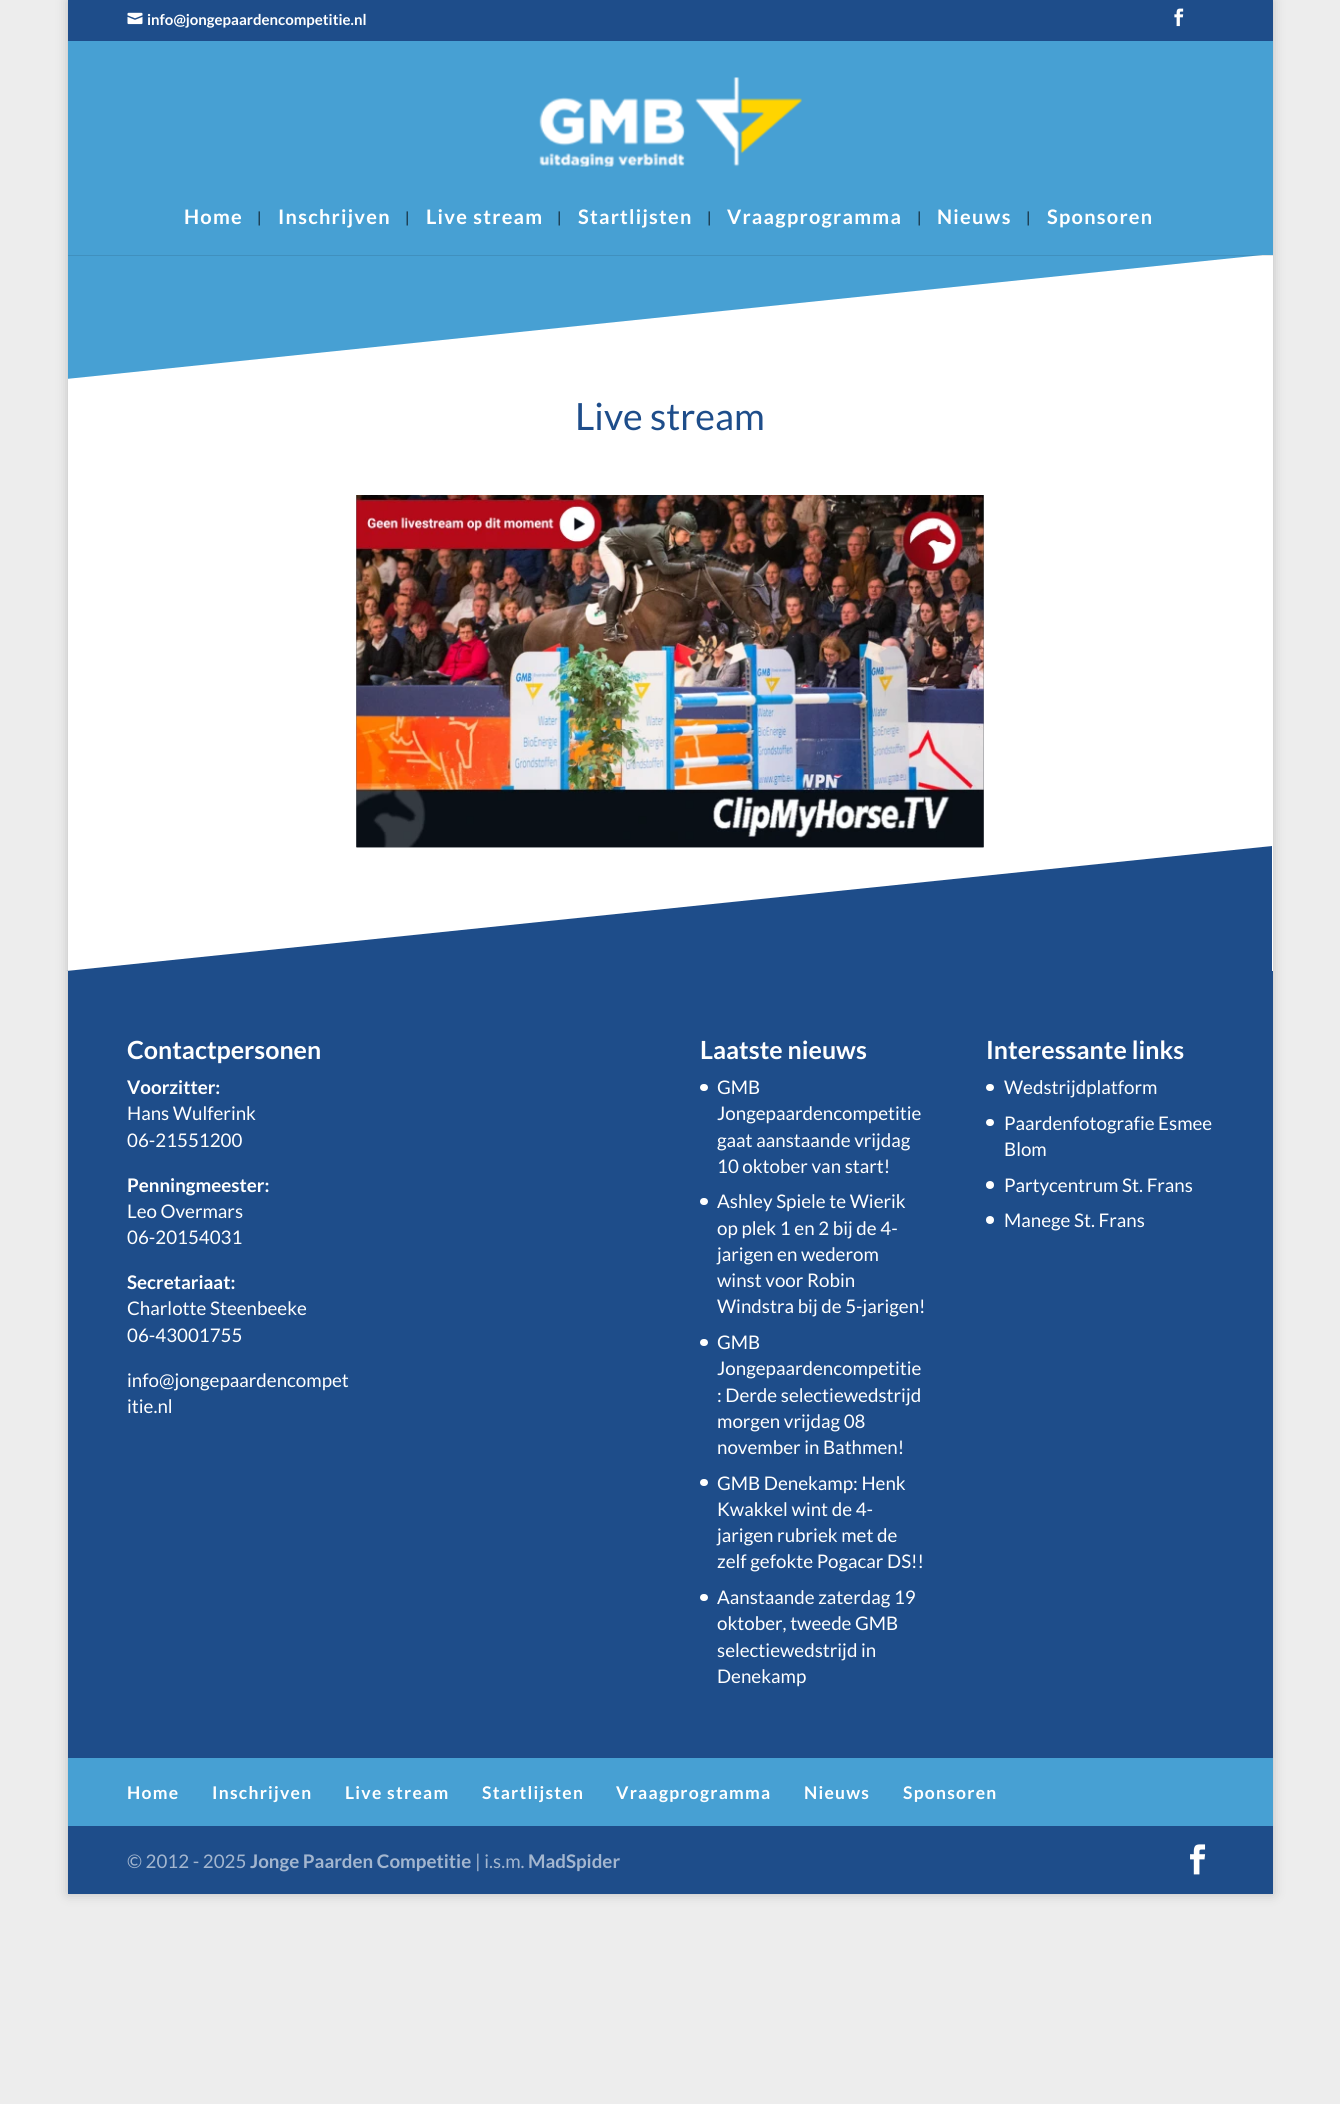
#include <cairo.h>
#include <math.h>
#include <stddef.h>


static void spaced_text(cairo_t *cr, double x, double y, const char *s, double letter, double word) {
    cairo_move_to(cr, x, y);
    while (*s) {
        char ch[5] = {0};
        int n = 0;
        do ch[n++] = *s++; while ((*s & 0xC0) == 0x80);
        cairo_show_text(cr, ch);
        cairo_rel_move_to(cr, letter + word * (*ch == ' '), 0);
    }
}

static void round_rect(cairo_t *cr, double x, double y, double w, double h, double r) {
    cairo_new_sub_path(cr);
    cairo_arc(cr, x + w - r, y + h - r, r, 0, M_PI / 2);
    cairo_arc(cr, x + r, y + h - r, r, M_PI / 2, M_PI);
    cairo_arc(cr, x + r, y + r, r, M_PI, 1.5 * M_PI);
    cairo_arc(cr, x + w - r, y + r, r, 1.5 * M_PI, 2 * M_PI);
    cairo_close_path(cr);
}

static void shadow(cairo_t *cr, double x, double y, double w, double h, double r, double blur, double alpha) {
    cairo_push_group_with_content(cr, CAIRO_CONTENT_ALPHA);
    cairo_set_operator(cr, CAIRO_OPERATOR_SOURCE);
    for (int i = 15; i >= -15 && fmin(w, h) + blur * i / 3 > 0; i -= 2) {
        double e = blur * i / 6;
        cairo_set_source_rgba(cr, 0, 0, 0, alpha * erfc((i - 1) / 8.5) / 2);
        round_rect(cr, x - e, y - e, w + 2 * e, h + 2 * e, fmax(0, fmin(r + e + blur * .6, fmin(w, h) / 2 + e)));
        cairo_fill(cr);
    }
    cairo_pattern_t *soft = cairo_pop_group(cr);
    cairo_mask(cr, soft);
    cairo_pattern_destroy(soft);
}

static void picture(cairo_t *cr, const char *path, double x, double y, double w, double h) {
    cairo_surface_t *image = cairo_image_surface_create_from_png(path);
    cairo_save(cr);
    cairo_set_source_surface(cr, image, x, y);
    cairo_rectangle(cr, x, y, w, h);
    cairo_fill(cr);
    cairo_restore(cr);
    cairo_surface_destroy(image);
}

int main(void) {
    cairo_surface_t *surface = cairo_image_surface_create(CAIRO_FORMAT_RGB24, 1340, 2104);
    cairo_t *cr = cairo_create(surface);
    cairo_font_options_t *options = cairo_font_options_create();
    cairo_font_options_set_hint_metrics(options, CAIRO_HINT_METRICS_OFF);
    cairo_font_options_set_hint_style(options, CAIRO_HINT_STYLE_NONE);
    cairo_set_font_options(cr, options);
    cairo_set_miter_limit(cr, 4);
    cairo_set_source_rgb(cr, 0.929, 0.929, 0.929);
    cairo_paint(cr);
    cairo_set_source_rgb(cr, 0, 0, 0);
    shadow(cr, 68, 0, 1205, 1894, 0, 6, 0.2);
    cairo_set_source_rgb(cr, 0.118, 0.302, 0.541);
    cairo_rectangle(cr, 68, 0, 1205, 41);
    cairo_fill(cr);
    picture(cr, "img1.png", 127, 12, 16, 13);
    cairo_select_font_face(cr, "Lato", CAIRO_FONT_SLANT_NORMAL, CAIRO_FONT_WEIGHT_BOLD);
    cairo_set_font_size(cr, 15);
    cairo_set_source_rgb(cr, 1, 1, 1);
    cairo_move_to(cr, 147, 25);
    cairo_show_text(cr, "info@jongepaardencompetitie.nl");
    picture(cr, "img2.png", 1174, 8, 10, 19);
    cairo_rectangle(cr, 68, 255, 1205, 716);
    cairo_fill(cr);
    cairo_save(cr);
    cairo_rectangle(cr, 68, 254, 1205, 125);
    cairo_clip(cr);
    cairo_set_source_rgb(cr, 0.278, 0.627, 0.827);
    cairo_new_path(cr);
    cairo_move_to(cr, 66, 379);
    cairo_line_to(cr, 66, 254);
    cairo_line_to(cr, 1272, 254);
    cairo_close_path(cr);
    cairo_fill(cr);
    cairo_restore(cr);
    cairo_set_source_rgba(cr, 0, 0, 0, 0.1);
    cairo_new_path(cr);
    cairo_move_to(cr, 68, 255);
    cairo_line_to(cr, 68, 256);
    cairo_line_to(cr, 1273, 256);
    cairo_line_to(cr, 1273, 43);
    cairo_line_to(cr, 1272, 43);
    cairo_line_to(cr, 1272, 255);
    cairo_close_path(cr);
    cairo_fill(cr);
    cairo_set_source_rgb(cr, 0.278, 0.627, 0.827);
    cairo_rectangle(cr, 68, 41, 1205, 214);
    cairo_fill(cr);
    picture(cr, "img3.png", 539, 77, 263, 90);
    cairo_set_font_size(cr, 20);
    cairo_set_source_rgb(cr, 1, 1, 1);
    spaced_text(cr, 184, 224, "Home", 1.25, 0);
    cairo_set_font_size(cr, 15);
    cairo_set_source_rgb(cr, 0.11, 0.251, 0.329);
    cairo_move_to(cr, 257, 223);
    cairo_show_text(cr, "|");
    cairo_set_font_size(cr, 20);
    cairo_set_source_rgb(cr, 1, 1, 1);
    spaced_text(cr, 278, 224, "Inschrijven", 1.25, 0);
    cairo_set_font_size(cr, 15);
    cairo_set_source_rgb(cr, 0.11, 0.251, 0.329);
    cairo_move_to(cr, 405, 223);
    cairo_show_text(cr, "|");
    cairo_set_font_size(cr, 20);
    cairo_set_source_rgb(cr, 1, 1, 1);
    spaced_text(cr, 426, 224, "Live stream", 1.25, 0);
    cairo_set_font_size(cr, 15);
    cairo_set_source_rgb(cr, 0.11, 0.251, 0.329);
    cairo_move_to(cr, 557, 223);
    cairo_show_text(cr, "|");
    cairo_set_font_size(cr, 20);
    cairo_set_source_rgb(cr, 1, 1, 1);
    spaced_text(cr, 578, 224, "Startlijsten", 1.25, 0);
    cairo_set_font_size(cr, 15);
    cairo_set_source_rgb(cr, 0.11, 0.251, 0.329);
    cairo_move_to(cr, 707, 223);
    cairo_show_text(cr, "|");
    cairo_set_font_size(cr, 20);
    cairo_set_source_rgb(cr, 1, 1, 1);
    spaced_text(cr, 727, 224, "Vraagprogramma", 1.25, 0);
    cairo_set_font_size(cr, 15);
    cairo_set_source_rgb(cr, 0.11, 0.251, 0.329);
    cairo_move_to(cr, 917, 223);
    cairo_show_text(cr, "|");
    cairo_set_font_size(cr, 20);
    cairo_set_source_rgb(cr, 1, 1, 1);
    spaced_text(cr, 937, 224, "Nieuws", 1.25, 0);
    cairo_set_font_size(cr, 15);
    cairo_set_source_rgb(cr, 0.11, 0.251, 0.329);
    cairo_move_to(cr, 1026, 223);
    cairo_show_text(cr, "|");
    cairo_set_font_size(cr, 20);
    cairo_set_source_rgb(cr, 1, 1, 1);
    spaced_text(cr, 1047, 224, "Sponsoren", 1.25, 0);
    cairo_select_font_face(cr, "Lato", CAIRO_FONT_SLANT_NORMAL, CAIRO_FONT_WEIGHT_NORMAL);
    cairo_set_font_size(cr, 37.5);
    cairo_set_source_rgb(cr, 0.118, 0.302, 0.541);
    cairo_move_to(cr, 575, 430);
    cairo_show_text(cr, "Live stream");
    cairo_new_path(cr);
    cairo_move_to(cr, 1272, 846);
    cairo_line_to(cr, 1272, 971);
    cairo_line_to(cr, 66, 971);
    cairo_close_path(cr);
    cairo_fill(cr);
    picture(cr, "img4.png", 356, 495, 628, 353);
    cairo_rectangle(cr, 68, 971, 1205, 923);
    cairo_fill(cr);
    cairo_select_font_face(cr, "Lato", CAIRO_FONT_SLANT_NORMAL, CAIRO_FONT_WEIGHT_BOLD);
    cairo_set_font_size(cr, 25);
    cairo_set_source_rgb(cr, 1, 1, 1);
    cairo_move_to(cr, 127, 1059);
    cairo_show_text(cr, "Contactpersonen");
    cairo_set_font_size(cr, 18.75);
    cairo_move_to(cr, 127, 1094);
    cairo_show_text(cr, "Voorzitter:");
    cairo_select_font_face(cr, "Lato", CAIRO_FONT_SLANT_NORMAL, CAIRO_FONT_WEIGHT_NORMAL);
    cairo_move_to(cr, 127, 1120);
    cairo_show_text(cr, "Hans Wulferink");
    cairo_move_to(cr, 127, 1147);
    cairo_show_text(cr, "06-21551200");
    cairo_select_font_face(cr, "Lato", CAIRO_FONT_SLANT_NORMAL, CAIRO_FONT_WEIGHT_BOLD);
    cairo_move_to(cr, 127, 1192);
    cairo_show_text(cr, "Penningmeester:");
    cairo_select_font_face(cr, "Lato", CAIRO_FONT_SLANT_NORMAL, CAIRO_FONT_WEIGHT_NORMAL);
    cairo_move_to(cr, 127, 1218);
    cairo_show_text(cr, "Leo Overmars");
    cairo_move_to(cr, 127, 1244);
    cairo_show_text(cr, "06-20154031");
    cairo_select_font_face(cr, "Lato", CAIRO_FONT_SLANT_NORMAL, CAIRO_FONT_WEIGHT_BOLD);
    cairo_move_to(cr, 127, 1289);
    cairo_show_text(cr, "Secretariaat:");
    cairo_select_font_face(cr, "Lato", CAIRO_FONT_SLANT_NORMAL, CAIRO_FONT_WEIGHT_NORMAL);
    cairo_move_to(cr, 127, 1315);
    cairo_show_text(cr, "Charlotte Steenbeeke");
    cairo_move_to(cr, 127, 1342);
    cairo_show_text(cr, "06-43001755");
    cairo_move_to(cr, 127, 1387);
    cairo_show_text(cr, "info@jongepaardencompet");
    cairo_move_to(cr, 127, 1413);
    cairo_show_text(cr, "itie.nl");
    cairo_select_font_face(cr, "Lato", CAIRO_FONT_SLANT_NORMAL, CAIRO_FONT_WEIGHT_BOLD);
    cairo_set_font_size(cr, 25);
    cairo_move_to(cr, 700, 1059);
    cairo_show_text(cr, "Laatste nieuws");
    round_rect(cr, 700, 1084, 8, 7, 3.5);
    cairo_fill(cr);
    cairo_select_font_face(cr, "Lato", CAIRO_FONT_SLANT_NORMAL, CAIRO_FONT_WEIGHT_NORMAL);
    cairo_set_font_size(cr, 18.75);
    cairo_move_to(cr, 717, 1094);
    cairo_show_text(cr, "GMB");
    cairo_move_to(cr, 717, 1120);
    cairo_show_text(cr, "Jongepaardencompetitie");
    cairo_move_to(cr, 717, 1147);
    cairo_show_text(cr, "gaat aanstaande vrijdag");
    cairo_move_to(cr, 717, 1173);
    cairo_show_text(cr, "10 oktober van start!");
    round_rect(cr, 700, 1198, 8, 7, 3.5);
    cairo_fill(cr);
    cairo_move_to(cr, 717, 1208);
    cairo_show_text(cr, "Ashley Spiele te Wierik");
    cairo_move_to(cr, 717, 1235);
    cairo_show_text(cr, "op plek 1 en 2 bij de 4-");
    cairo_move_to(cr, 717, 1261);
    cairo_show_text(cr, "jarigen en wederom");
    cairo_move_to(cr, 717, 1287);
    cairo_show_text(cr, "winst voor Robin");
    cairo_move_to(cr, 717, 1313);
    cairo_show_text(cr, "Windstra bij de 5-jarigen!");
    round_rect(cr, 700, 1339, 8, 7, 3.5);
    cairo_fill(cr);
    cairo_move_to(cr, 717, 1349);
    cairo_show_text(cr, "GMB");
    cairo_move_to(cr, 717, 1375);
    cairo_show_text(cr, "Jongepaardencompetitie");
    cairo_move_to(cr, 717, 1402);
    cairo_show_text(cr, ": Derde selectiewedstrijd");
    cairo_move_to(cr, 717, 1428);
    cairo_show_text(cr, "morgen vrijdag 08");
    cairo_move_to(cr, 717, 1454);
    cairo_show_text(cr, "november in Bathmen!");
    round_rect(cr, 700, 1479, 8, 7, 3.5);
    cairo_fill(cr);
    cairo_move_to(cr, 717, 1490);
    cairo_show_text(cr, "GMB Denekamp: Henk");
    cairo_move_to(cr, 717, 1516);
    cairo_show_text(cr, "Kwakkel wint de 4-");
    cairo_move_to(cr, 717, 1542);
    cairo_show_text(cr, "jarigen rubriek met de");
    cairo_move_to(cr, 717, 1568);
    cairo_show_text(cr, "zelf gefokte Pogacar DS!!");
    round_rect(cr, 700, 1594, 8, 7, 3.5);
    cairo_fill(cr);
    cairo_move_to(cr, 717, 1604);
    cairo_show_text(cr, "Aanstaande zaterdag 19");
    cairo_move_to(cr, 717, 1630);
    cairo_show_text(cr, "oktober, tweede GMB");
    cairo_move_to(cr, 717, 1657);
    cairo_show_text(cr, "selectiewedstrijd in");
    cairo_move_to(cr, 717, 1683);
    cairo_show_text(cr, "Denekamp");
    cairo_select_font_face(cr, "Lato", CAIRO_FONT_SLANT_NORMAL, CAIRO_FONT_WEIGHT_BOLD);
    cairo_set_font_size(cr, 25);
    cairo_move_to(cr, 986, 1059);
    cairo_show_text(cr, "Interessante links");
    round_rect(cr, 986, 1084, 8, 7, 3.5);
    cairo_fill(cr);
    cairo_select_font_face(cr, "Lato", CAIRO_FONT_SLANT_NORMAL, CAIRO_FONT_WEIGHT_NORMAL);
    cairo_set_font_size(cr, 18.75);
    cairo_move_to(cr, 1004, 1094);
    cairo_show_text(cr, "Wedstrijdplatform");
    round_rect(cr, 986, 1119, 8, 7, 3.5);
    cairo_fill(cr);
    cairo_move_to(cr, 1004, 1130);
    cairo_show_text(cr, "Paardenfotografie Esmee");
    cairo_move_to(cr, 1004, 1156);
    cairo_show_text(cr, "Blom");
    cairo_new_path(cr);
    cairo_arc(cr, 990, 1185, 4, 0, 2 * M_PI);
    cairo_fill(cr);
    cairo_move_to(cr, 1004, 1192);
    cairo_show_text(cr, "Partycentrum St. Frans");
    cairo_new_path(cr);
    cairo_arc(cr, 990, 1220, 4, 0, 2 * M_PI);
    cairo_fill(cr);
    cairo_move_to(cr, 1004, 1227);
    cairo_show_text(cr, "Manege St. Frans");
    cairo_set_source_rgb(cr, 0.278, 0.627, 0.827);
    cairo_rectangle(cr, 68, 1758, 1205, 68);
    cairo_fill(cr);
    cairo_select_font_face(cr, "Lato", CAIRO_FONT_SLANT_NORMAL, CAIRO_FONT_WEIGHT_BOLD);
    cairo_set_font_size(cr, 17.5);
    cairo_set_source_rgb(cr, 1, 1, 1);
    spaced_text(cr, 127, 1799, "Home", 1.25, 0);
    spaced_text(cr, 212, 1799, "Inschrijven", 1.25, 0);
    spaced_text(cr, 345, 1799, "Live stream", 1.25, 0);
    spaced_text(cr, 482, 1799, "Startlijsten", 1.25, 0);
    spaced_text(cr, 616, 1799, "Vraagprogramma", 1.25, 0);
    spaced_text(cr, 804, 1799, "Nieuws", 1.25, 0);
    spaced_text(cr, 903, 1799, "Sponsoren", 1.25, 0);
    cairo_select_font_face(cr, "Lato", CAIRO_FONT_SLANT_NORMAL, CAIRO_FONT_WEIGHT_NORMAL);
    cairo_set_font_size(cr, 18.75);
    cairo_set_source_rgb(cr, 0.639, 0.714, 0.812);
    cairo_move_to(cr, 127, 1868);
    cairo_show_text(cr, "© 2012 - 2025");
    cairo_select_font_face(cr, "Lato", CAIRO_FONT_SLANT_NORMAL, CAIRO_FONT_WEIGHT_BOLD);
    cairo_move_to(cr, 250, 1868);
    cairo_show_text(cr, "Jonge Paarden Competitie");
    cairo_select_font_face(cr, "Lato", CAIRO_FONT_SLANT_NORMAL, CAIRO_FONT_WEIGHT_NORMAL);
    cairo_move_to(cr, 475, 1868);
    cairo_show_text(cr, "| i.s.m.");
    cairo_select_font_face(cr, "Lato", CAIRO_FONT_SLANT_NORMAL, CAIRO_FONT_WEIGHT_BOLD);
    cairo_move_to(cr, 528, 1868);
    cairo_show_text(cr, "MadSpider");
    picture(cr, "img5.png", 1190, 1844, 16, 31);
    cairo_surface_write_to_png(surface, "page.png");
    cairo_font_options_destroy(options);
    cairo_destroy(cr);
    cairo_surface_destroy(surface);
    return 0;
}
